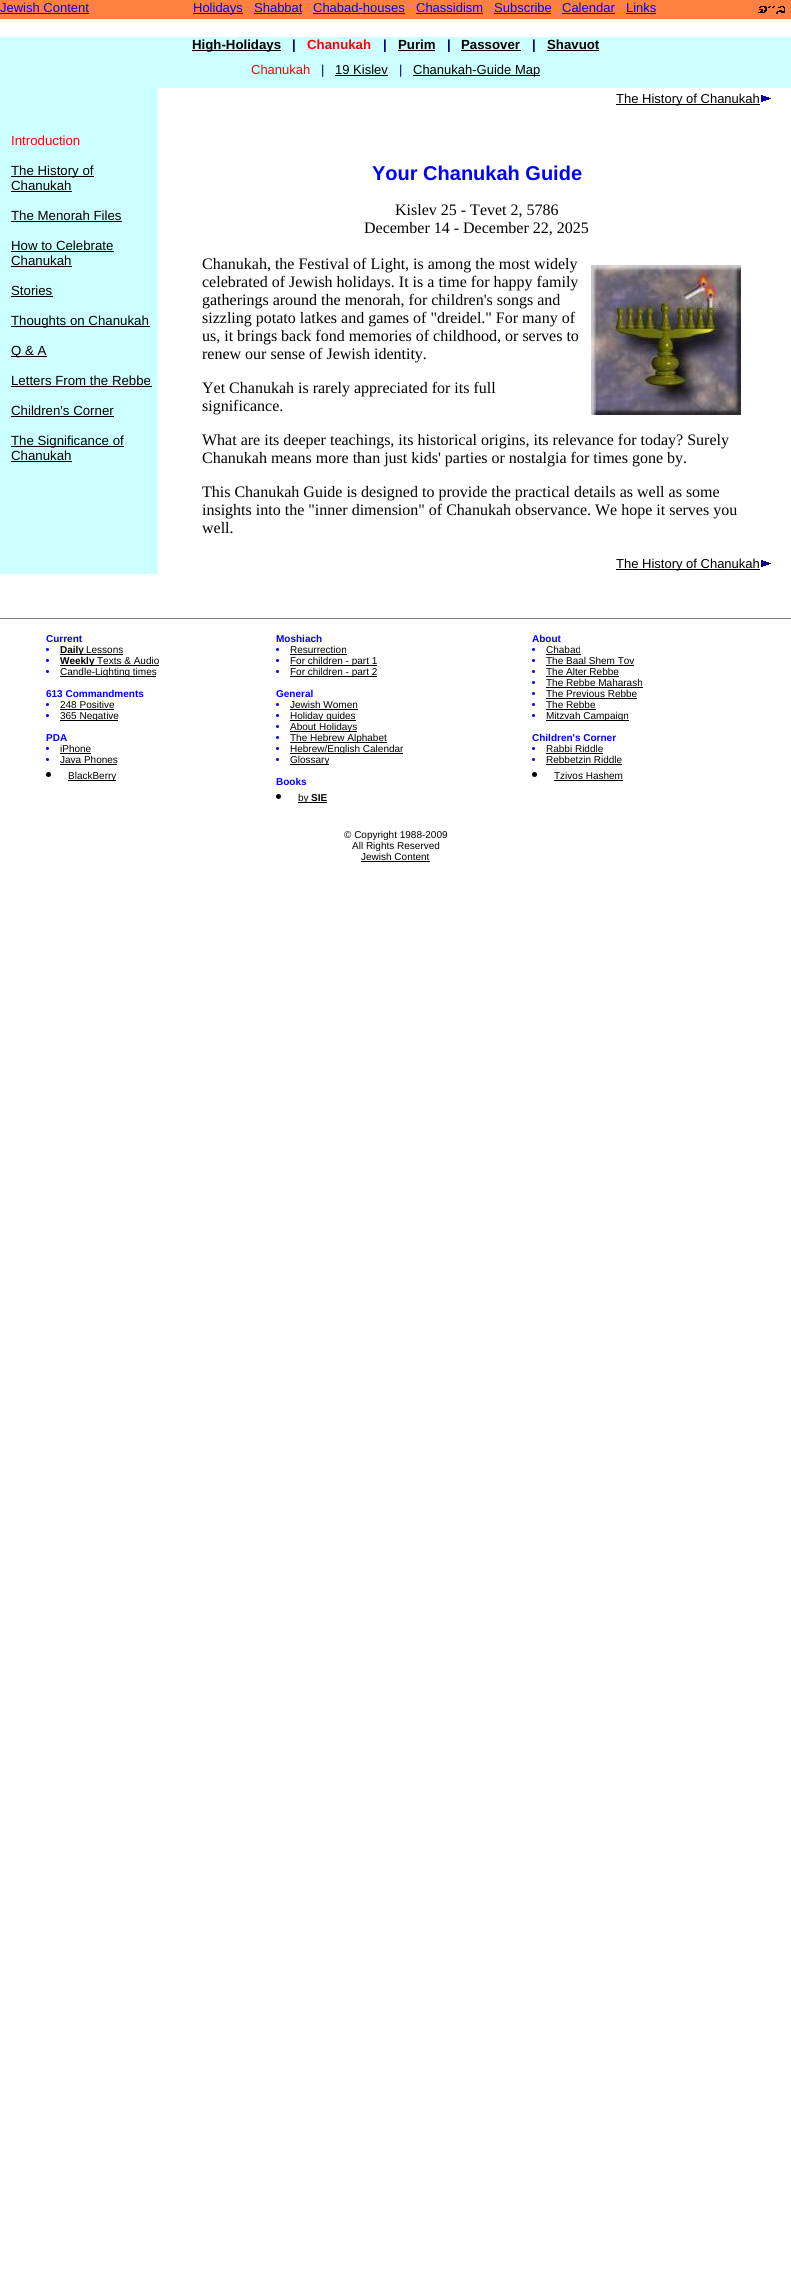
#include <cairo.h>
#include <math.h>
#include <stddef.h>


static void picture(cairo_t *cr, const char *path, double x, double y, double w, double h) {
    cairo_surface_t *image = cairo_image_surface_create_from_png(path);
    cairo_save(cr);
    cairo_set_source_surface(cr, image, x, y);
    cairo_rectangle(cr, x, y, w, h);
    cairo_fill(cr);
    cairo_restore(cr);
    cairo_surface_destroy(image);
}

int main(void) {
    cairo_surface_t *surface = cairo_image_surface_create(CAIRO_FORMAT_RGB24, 791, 2293);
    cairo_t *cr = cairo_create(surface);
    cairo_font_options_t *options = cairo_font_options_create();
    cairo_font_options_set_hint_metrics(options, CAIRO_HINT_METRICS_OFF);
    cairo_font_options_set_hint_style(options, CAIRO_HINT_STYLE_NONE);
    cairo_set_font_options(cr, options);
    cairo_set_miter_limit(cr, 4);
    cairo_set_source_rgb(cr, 1, 1, 1);
    cairo_paint(cr);
    cairo_set_source_rgb(cr, 1, 0.502, 0.251);
    cairo_rectangle(cr, 0, 0, 791, 19);
    cairo_fill(cr);
    cairo_select_font_face(cr, "Liberation Sans", CAIRO_FONT_SLANT_NORMAL, CAIRO_FONT_WEIGHT_NORMAL);
    cairo_set_font_size(cr, 13);
    cairo_set_source_rgb(cr, 0, 0, 1);
    cairo_move_to(cr, 0, 12);
    cairo_show_text(cr, "Jewish Content");
    cairo_rectangle(cr, 0, 13, 89, 1);
    cairo_fill(cr);
    cairo_rectangle(cr, 193, 13, 50, 1);
    cairo_fill(cr);
    cairo_move_to(cr, 193, 12);
    cairo_show_text(cr, "Holidays");
    cairo_move_to(cr, 254, 12);
    cairo_show_text(cr, "Shabbat");
    cairo_rectangle(cr, 254, 13, 48, 1);
    cairo_fill(cr);
    cairo_move_to(cr, 313, 12);
    cairo_show_text(cr, "Chabad-houses");
    cairo_rectangle(cr, 313, 13, 92, 1);
    cairo_fill(cr);
    cairo_move_to(cr, 416, 12);
    cairo_show_text(cr, "Chassidism");
    cairo_rectangle(cr, 416, 13, 67, 1);
    cairo_fill(cr);
    cairo_move_to(cr, 494, 12);
    cairo_show_text(cr, "Subscribe");
    cairo_rectangle(cr, 494, 13, 57, 1);
    cairo_fill(cr);
    cairo_move_to(cr, 562, 12);
    cairo_show_text(cr, "Calendar");
    cairo_rectangle(cr, 562, 13, 53, 1);
    cairo_fill(cr);
    cairo_move_to(cr, 626, 12);
    cairo_show_text(cr, "Links");
    cairo_rectangle(cr, 626, 13, 30, 1);
    cairo_fill(cr);
    picture(cr, "img1.png", 758, 6, 27, 8);
    cairo_set_source_rgb(cr, 0.8, 1, 1);
    cairo_rectangle(cr, 0, 37, 791, 51);
    cairo_fill(cr);
    cairo_set_source_rgb(cr, 0, 0, 0);
    cairo_rectangle(cr, 192, 50, 89, 1);
    cairo_fill(cr);
    cairo_select_font_face(cr, "Liberation Sans", CAIRO_FONT_SLANT_NORMAL, CAIRO_FONT_WEIGHT_BOLD);
    cairo_set_font_size(cr, 13.25);
    cairo_move_to(cr, 192, 49);
    cairo_show_text(cr, "High-Holidays");
    cairo_set_source_rgb(cr, 0, 0, 0.502);
    cairo_move_to(cr, 292, 49);
    cairo_show_text(cr, "|");
    cairo_set_source_rgb(cr, 1, 0, 0);
    cairo_move_to(cr, 307, 49);
    cairo_show_text(cr, "Chanukah");
    cairo_set_source_rgb(cr, 0, 0, 0.502);
    cairo_move_to(cr, 383, 49);
    cairo_show_text(cr, "|");
    cairo_set_source_rgb(cr, 0, 0, 0);
    cairo_move_to(cr, 398, 49);
    cairo_show_text(cr, "Purim");
    cairo_rectangle(cr, 398, 50, 37, 1);
    cairo_fill(cr);
    cairo_set_source_rgb(cr, 0, 0, 0.502);
    cairo_move_to(cr, 447, 49);
    cairo_show_text(cr, "|");
    cairo_set_source_rgb(cr, 0, 0, 0);
    cairo_move_to(cr, 461, 49);
    cairo_show_text(cr, "Passover");
    cairo_rectangle(cr, 461, 50, 60, 1);
    cairo_fill(cr);
    cairo_set_source_rgb(cr, 0, 0, 0.502);
    cairo_move_to(cr, 532, 49);
    cairo_show_text(cr, "|");
    cairo_set_source_rgb(cr, 0, 0, 0);
    cairo_move_to(cr, 547, 49);
    cairo_show_text(cr, "Shavuot");
    cairo_rectangle(cr, 547, 50, 52, 1);
    cairo_fill(cr);
    cairo_select_font_face(cr, "Liberation Sans", CAIRO_FONT_SLANT_NORMAL, CAIRO_FONT_WEIGHT_NORMAL);
    cairo_set_font_size(cr, 13);
    cairo_set_source_rgb(cr, 1, 0, 0);
    cairo_move_to(cr, 251, 74);
    cairo_show_text(cr, "Chanukah");
    cairo_set_source_rgb(cr, 0, 0, 0.502);
    cairo_move_to(cr, 321, 74);
    cairo_show_text(cr, "|");
    cairo_set_source_rgb(cr, 0, 0, 0);
    cairo_move_to(cr, 335, 74);
    cairo_show_text(cr, "19 Kislev");
    cairo_rectangle(cr, 335, 75, 53, 1);
    cairo_fill(cr);
    cairo_set_source_rgb(cr, 0, 0, 0.502);
    cairo_move_to(cr, 399, 74);
    cairo_show_text(cr, "|");
    cairo_set_source_rgb(cr, 0, 0, 0);
    cairo_rectangle(cr, 413, 75, 127, 1);
    cairo_fill(cr);
    cairo_move_to(cr, 413, 74);
    cairo_show_text(cr, "Chanukah-Guide Map");
    cairo_set_source_rgb(cr, 0.8, 1, 1);
    cairo_rectangle(cr, 0, 88, 158, 486);
    cairo_fill(cr);
    cairo_set_font_size(cr, 13.25);
    cairo_set_source_rgb(cr, 1, 0, 0);
    cairo_move_to(cr, 11, 145);
    cairo_show_text(cr, "Introduction");
    cairo_set_source_rgb(cr, 0, 0, 0);
    cairo_rectangle(cr, 11, 176, 83, 1);
    cairo_fill(cr);
    cairo_move_to(cr, 11, 175);
    cairo_show_text(cr, "The History of");
    cairo_move_to(cr, 11, 190);
    cairo_show_text(cr, "Chanukah");
    cairo_rectangle(cr, 11, 191, 61, 1);
    cairo_fill(cr);
    cairo_move_to(cr, 11, 220);
    cairo_show_text(cr, "The Menorah Files");
    cairo_rectangle(cr, 11, 221, 111, 1);
    cairo_fill(cr);
    cairo_move_to(cr, 11, 250);
    cairo_show_text(cr, "How to Celebrate");
    cairo_rectangle(cr, 11, 251, 103, 1);
    cairo_fill(cr);
    cairo_move_to(cr, 11, 265);
    cairo_show_text(cr, "Chanukah");
    cairo_rectangle(cr, 11, 266, 61, 1);
    cairo_fill(cr);
    cairo_move_to(cr, 11, 295);
    cairo_show_text(cr, "Stories");
    cairo_rectangle(cr, 11, 296, 42, 1);
    cairo_fill(cr);
    cairo_rectangle(cr, 11, 326, 139, 1);
    cairo_fill(cr);
    cairo_move_to(cr, 11, 325);
    cairo_show_text(cr, "Thoughts on Chanukah");
    cairo_rectangle(cr, 11, 356, 36, 1);
    cairo_fill(cr);
    cairo_move_to(cr, 11, 355);
    cairo_show_text(cr, "Q & A");
    cairo_move_to(cr, 11, 385);
    cairo_show_text(cr, "Letters From the Rebbe");
    cairo_rectangle(cr, 11, 386, 141, 1);
    cairo_fill(cr);
    cairo_move_to(cr, 11, 415);
    cairo_show_text(cr, "Children's Corner");
    cairo_rectangle(cr, 11, 416, 103, 1);
    cairo_fill(cr);
    cairo_rectangle(cr, 11, 446, 113, 1);
    cairo_fill(cr);
    cairo_move_to(cr, 11, 445);
    cairo_show_text(cr, "The Significance of");
    cairo_move_to(cr, 11, 460);
    cairo_show_text(cr, "Chanukah");
    cairo_rectangle(cr, 11, 461, 61, 1);
    cairo_fill(cr);
    cairo_rectangle(cr, 616, 104, 144, 1);
    cairo_fill(cr);
    cairo_set_font_size(cr, 13);
    cairo_move_to(cr, 616, 103);
    cairo_show_text(cr, "The History of Chanukah");
    picture(cr, "img2.png", 761, 95, 10, 7);
    cairo_select_font_face(cr, "Liberation Sans", CAIRO_FONT_SLANT_NORMAL, CAIRO_FONT_WEIGHT_BOLD);
    cairo_set_font_size(cr, 20);
    cairo_set_source_rgb(cr, 0, 0, 1);
    cairo_move_to(cr, 372, 180);
    cairo_show_text(cr, "Your Chanukah Guide");
    cairo_select_font_face(cr, "Liberation Serif", CAIRO_FONT_SLANT_NORMAL, CAIRO_FONT_WEIGHT_NORMAL);
    cairo_set_font_size(cr, 16);
    cairo_set_source_rgb(cr, 0, 0, 0);
    cairo_move_to(cr, 395, 215);
    cairo_show_text(cr, "Kislev 25 - Tevet 2, 5786");
    cairo_move_to(cr, 364, 233);
    cairo_show_text(cr, "December 14 - December 22, 2025");
    cairo_move_to(cr, 202, 269);
    cairo_show_text(cr, "Chanukah, the Festival of Light, is among the most widely");
    picture(cr, "img3.png", 591, 265, 150, 150);
    cairo_move_to(cr, 202, 287);
    cairo_show_text(cr, "celebrated of Jewish holidays. It is a time for happy family");
    cairo_move_to(cr, 202, 305);
    cairo_show_text(cr, "gatherings around the menorah, for children's songs and");
    cairo_move_to(cr, 202, 323);
    cairo_show_text(cr, "sizzling potato latkes and games of \"dreidel.\" For many of");
    cairo_move_to(cr, 202, 341);
    cairo_show_text(cr, "us, it brings back fond memories of childhood, or serves to");
    cairo_move_to(cr, 202, 359);
    cairo_show_text(cr, "renew our sense of Jewish identity.");
    cairo_move_to(cr, 202, 393);
    cairo_show_text(cr, "Yet Chanukah is rarely appreciated for its full");
    cairo_move_to(cr, 202, 411);
    cairo_show_text(cr, "significance.");
    cairo_move_to(cr, 202, 445);
    cairo_show_text(cr, "What are its deeper teachings, its historical origins, its relevance for today? Surely");
    cairo_move_to(cr, 202, 463);
    cairo_show_text(cr, "Chanukah means more than just kids' parties or nostalgia for times gone by.");
    cairo_move_to(cr, 202, 497);
    cairo_show_text(cr, "This Chanukah Guide is designed to provide the practical details as well as some");
    cairo_move_to(cr, 202, 515);
    cairo_show_text(cr, "insights into the \"inner dimension\" of Chanukah observance. We hope it serves you");
    cairo_move_to(cr, 202, 533);
    cairo_show_text(cr, "well.");
    cairo_rectangle(cr, 616, 569, 144, 1);
    cairo_fill(cr);
    cairo_select_font_face(cr, "Liberation Sans", CAIRO_FONT_SLANT_NORMAL, CAIRO_FONT_WEIGHT_NORMAL);
    cairo_set_font_size(cr, 13);
    cairo_move_to(cr, 616, 568);
    cairo_show_text(cr, "The History of Chanukah");
    picture(cr, "img2.png", 761, 560, 10, 7);
    cairo_set_source_rgb(cr, 0.502, 0.502, 0.502);
    cairo_rectangle(cr, 0, 618, 791, 1);
    cairo_fill(cr);
    cairo_select_font_face(cr, "Liberation Sans", CAIRO_FONT_SLANT_NORMAL, CAIRO_FONT_WEIGHT_BOLD);
    cairo_set_font_size(cr, 10);
    cairo_set_source_rgb(cr, 0, 0, 1);
    cairo_move_to(cr, 46, 642);
    cairo_show_text(cr, "Current");
    cairo_new_path(cr);
    cairo_arc(cr, 47.5, 649.5, 1.5, 0, 2 * M_PI);
    cairo_fill(cr);
    cairo_set_source_rgb(cr, 0, 0, 0);
    cairo_rectangle(cr, 60, 654, 23, 1);
    cairo_fill(cr);
    cairo_move_to(cr, 60, 653);
    cairo_show_text(cr, "Daily");
    cairo_rectangle(cr, 83, 654, 40, 1);
    cairo_fill(cr);
    cairo_select_font_face(cr, "Liberation Sans", CAIRO_FONT_SLANT_NORMAL, CAIRO_FONT_WEIGHT_NORMAL);
    cairo_move_to(cr, 86, 653);
    cairo_show_text(cr, "Lessons");
    cairo_set_source_rgb(cr, 0, 0, 1);
    cairo_new_path(cr);
    cairo_arc(cr, 47.5, 660.5, 1.5, 0, 2 * M_PI);
    cairo_fill(cr);
    cairo_set_source_rgb(cr, 0, 0, 0);
    cairo_rectangle(cr, 60, 665, 99, 1);
    cairo_fill(cr);
    cairo_select_font_face(cr, "Liberation Sans", CAIRO_FONT_SLANT_NORMAL, CAIRO_FONT_WEIGHT_BOLD);
    cairo_move_to(cr, 60, 664);
    cairo_show_text(cr, "Weekly");
    cairo_select_font_face(cr, "Liberation Sans", CAIRO_FONT_SLANT_NORMAL, CAIRO_FONT_WEIGHT_NORMAL);
    cairo_move_to(cr, 97, 664);
    cairo_show_text(cr, "Texts & Audio");
    cairo_set_source_rgb(cr, 0, 0, 1);
    cairo_new_path(cr);
    cairo_arc(cr, 47.5, 671.5, 1.5, 0, 2 * M_PI);
    cairo_fill(cr);
    cairo_set_source_rgb(cr, 0, 0, 0);
    cairo_rectangle(cr, 60, 676, 96, 1);
    cairo_fill(cr);
    cairo_move_to(cr, 60, 675);
    cairo_show_text(cr, "Candle-Lighting times");
    cairo_select_font_face(cr, "Liberation Sans", CAIRO_FONT_SLANT_NORMAL, CAIRO_FONT_WEIGHT_BOLD);
    cairo_set_source_rgb(cr, 0, 0, 1);
    cairo_move_to(cr, 46, 697);
    cairo_show_text(cr, "613 Commandments");
    cairo_new_path(cr);
    cairo_arc(cr, 47.5, 704.5, 1.5, 0, 2 * M_PI);
    cairo_fill(cr);
    cairo_select_font_face(cr, "Liberation Sans", CAIRO_FONT_SLANT_NORMAL, CAIRO_FONT_WEIGHT_NORMAL);
    cairo_set_source_rgb(cr, 0, 0, 0);
    cairo_move_to(cr, 60, 708);
    cairo_show_text(cr, "248 Positive");
    cairo_rectangle(cr, 60, 709, 54, 1);
    cairo_fill(cr);
    cairo_set_source_rgb(cr, 0, 0, 1);
    cairo_arc(cr, 47.5, 715.5, 1.5, 0, 2 * M_PI);
    cairo_fill(cr);
    cairo_set_source_rgb(cr, 0, 0, 0);
    cairo_rectangle(cr, 60, 720, 58, 1);
    cairo_fill(cr);
    cairo_move_to(cr, 60, 719);
    cairo_show_text(cr, "365 Negative");
    cairo_select_font_face(cr, "Liberation Sans", CAIRO_FONT_SLANT_NORMAL, CAIRO_FONT_WEIGHT_BOLD);
    cairo_set_source_rgb(cr, 0, 0, 1);
    cairo_move_to(cr, 46, 741);
    cairo_show_text(cr, "PDA");
    cairo_new_path(cr);
    cairo_arc(cr, 47.5, 748.5, 1.5, 0, 2 * M_PI);
    cairo_fill(cr);
    cairo_select_font_face(cr, "Liberation Sans", CAIRO_FONT_SLANT_NORMAL, CAIRO_FONT_WEIGHT_NORMAL);
    cairo_set_source_rgb(cr, 0, 0, 0);
    cairo_move_to(cr, 60, 752);
    cairo_show_text(cr, "iPhone");
    cairo_rectangle(cr, 60, 753, 31, 1);
    cairo_fill(cr);
    cairo_set_source_rgb(cr, 0, 0, 1);
    cairo_arc(cr, 47.5, 759.5, 1.5, 0, 2 * M_PI);
    cairo_fill(cr);
    cairo_set_source_rgb(cr, 0, 0, 0);
    cairo_move_to(cr, 60, 763);
    cairo_show_text(cr, "Java Phones");
    cairo_rectangle(cr, 60, 764, 57, 1);
    cairo_fill(cr);
    cairo_arc(cr, 48.5, 774.5, 2.5, 0, 2 * M_PI);
    cairo_fill(cr);
    cairo_rectangle(cr, 68, 780, 48, 1);
    cairo_fill(cr);
    cairo_move_to(cr, 68, 779);
    cairo_show_text(cr, "BlackBerry");
    cairo_select_font_face(cr, "Liberation Sans", CAIRO_FONT_SLANT_NORMAL, CAIRO_FONT_WEIGHT_BOLD);
    cairo_set_source_rgb(cr, 0, 0, 1);
    cairo_move_to(cr, 276, 642);
    cairo_show_text(cr, "Moshiach");
    cairo_new_path(cr);
    cairo_arc(cr, 277.5, 649.5, 1.5, 0, 2 * M_PI);
    cairo_fill(cr);
    cairo_select_font_face(cr, "Liberation Sans", CAIRO_FONT_SLANT_NORMAL, CAIRO_FONT_WEIGHT_NORMAL);
    cairo_set_source_rgb(cr, 0, 0, 0);
    cairo_move_to(cr, 290, 653);
    cairo_show_text(cr, "Resurrection");
    cairo_rectangle(cr, 290, 654, 57, 1);
    cairo_fill(cr);
    cairo_set_source_rgb(cr, 0, 0, 1);
    cairo_arc(cr, 277.5, 660.5, 1.5, 0, 2 * M_PI);
    cairo_fill(cr);
    cairo_set_source_rgb(cr, 0, 0, 0);
    cairo_rectangle(cr, 290, 665, 87, 1);
    cairo_fill(cr);
    cairo_move_to(cr, 290, 664);
    cairo_show_text(cr, "For children - part 1");
    cairo_set_source_rgb(cr, 0, 0, 1);
    cairo_new_path(cr);
    cairo_arc(cr, 277.5, 671.5, 1.5, 0, 2 * M_PI);
    cairo_fill(cr);
    cairo_set_source_rgb(cr, 0, 0, 0);
    cairo_rectangle(cr, 290, 676, 87, 1);
    cairo_fill(cr);
    cairo_move_to(cr, 290, 675);
    cairo_show_text(cr, "For children - part 2");
    cairo_select_font_face(cr, "Liberation Sans", CAIRO_FONT_SLANT_NORMAL, CAIRO_FONT_WEIGHT_BOLD);
    cairo_set_source_rgb(cr, 0, 0, 1);
    cairo_move_to(cr, 276, 697);
    cairo_show_text(cr, "General");
    cairo_new_path(cr);
    cairo_arc(cr, 277.5, 704.5, 1.5, 0, 2 * M_PI);
    cairo_fill(cr);
    cairo_select_font_face(cr, "Liberation Sans", CAIRO_FONT_SLANT_NORMAL, CAIRO_FONT_WEIGHT_NORMAL);
    cairo_set_source_rgb(cr, 0, 0, 0);
    cairo_move_to(cr, 290, 708);
    cairo_show_text(cr, "Jewish Women");
    cairo_rectangle(cr, 290, 709, 68, 1);
    cairo_fill(cr);
    cairo_set_source_rgb(cr, 0, 0, 1);
    cairo_arc(cr, 277.5, 715.5, 1.5, 0, 2 * M_PI);
    cairo_fill(cr);
    cairo_set_source_rgb(cr, 0, 0, 0);
    cairo_rectangle(cr, 290, 720, 66, 1);
    cairo_fill(cr);
    cairo_move_to(cr, 290, 719);
    cairo_show_text(cr, "Holiday guides");
    cairo_set_source_rgb(cr, 0, 0, 1);
    cairo_new_path(cr);
    cairo_arc(cr, 277.5, 726.5, 1.5, 0, 2 * M_PI);
    cairo_fill(cr);
    cairo_set_source_rgb(cr, 0, 0, 0);
    cairo_rectangle(cr, 290, 731, 67, 1);
    cairo_fill(cr);
    cairo_move_to(cr, 290, 730);
    cairo_show_text(cr, "About Holidays");
    cairo_set_source_rgb(cr, 0, 0, 1);
    cairo_new_path(cr);
    cairo_arc(cr, 277.5, 737.5, 1.5, 0, 2 * M_PI);
    cairo_fill(cr);
    cairo_set_source_rgb(cr, 0, 0, 0);
    cairo_rectangle(cr, 290, 742, 97, 1);
    cairo_fill(cr);
    cairo_move_to(cr, 290, 741);
    cairo_show_text(cr, "The Hebrew Alphabet");
    cairo_set_source_rgb(cr, 0, 0, 1);
    cairo_new_path(cr);
    cairo_arc(cr, 277.5, 748.5, 1.5, 0, 2 * M_PI);
    cairo_fill(cr);
    cairo_set_source_rgb(cr, 0, 0, 0);
    cairo_rectangle(cr, 290, 753, 113, 1);
    cairo_fill(cr);
    cairo_move_to(cr, 290, 752);
    cairo_show_text(cr, "Hebrew/English Calendar");
    cairo_set_source_rgb(cr, 0, 0, 1);
    cairo_new_path(cr);
    cairo_arc(cr, 277.5, 759.5, 1.5, 0, 2 * M_PI);
    cairo_fill(cr);
    cairo_set_source_rgb(cr, 0, 0, 0);
    cairo_rectangle(cr, 290, 764, 39, 1);
    cairo_fill(cr);
    cairo_move_to(cr, 290, 763);
    cairo_show_text(cr, "Glossary");
    cairo_select_font_face(cr, "Liberation Sans", CAIRO_FONT_SLANT_NORMAL, CAIRO_FONT_WEIGHT_BOLD);
    cairo_set_source_rgb(cr, 0, 0, 1);
    cairo_move_to(cr, 276, 785);
    cairo_show_text(cr, "Books");
    cairo_set_source_rgb(cr, 0, 0, 0);
    cairo_new_path(cr);
    cairo_arc(cr, 278.5, 796.5, 2.5, 0, 2 * M_PI);
    cairo_fill(cr);
    cairo_rectangle(cr, 298, 802, 29, 1);
    cairo_fill(cr);
    cairo_select_font_face(cr, "Liberation Sans", CAIRO_FONT_SLANT_NORMAL, CAIRO_FONT_WEIGHT_NORMAL);
    cairo_move_to(cr, 298, 801);
    cairo_show_text(cr, "by");
    cairo_select_font_face(cr, "Liberation Sans", CAIRO_FONT_SLANT_NORMAL, CAIRO_FONT_WEIGHT_BOLD);
    cairo_move_to(cr, 311, 801);
    cairo_show_text(cr, "SIE");
    cairo_set_source_rgb(cr, 0, 0, 1);
    cairo_move_to(cr, 532, 642);
    cairo_show_text(cr, "About");
    cairo_new_path(cr);
    cairo_arc(cr, 533.5, 649.5, 1.5, 0, 2 * M_PI);
    cairo_fill(cr);
    cairo_select_font_face(cr, "Liberation Sans", CAIRO_FONT_SLANT_NORMAL, CAIRO_FONT_WEIGHT_NORMAL);
    cairo_set_source_rgb(cr, 0, 0, 0);
    cairo_move_to(cr, 546, 653);
    cairo_show_text(cr, "Chabad");
    cairo_rectangle(cr, 546, 654, 35, 1);
    cairo_fill(cr);
    cairo_set_source_rgb(cr, 0, 0, 1);
    cairo_arc(cr, 533.5, 660.5, 1.5, 0, 2 * M_PI);
    cairo_fill(cr);
    cairo_set_source_rgb(cr, 0, 0, 0);
    cairo_move_to(cr, 546, 664);
    cairo_show_text(cr, "The Baal Shem Tov");
    cairo_rectangle(cr, 546, 665, 88, 1);
    cairo_fill(cr);
    cairo_set_source_rgb(cr, 0, 0, 1);
    cairo_arc(cr, 533.5, 671.5, 1.5, 0, 2 * M_PI);
    cairo_fill(cr);
    cairo_set_source_rgb(cr, 0, 0, 0);
    cairo_move_to(cr, 546, 675);
    cairo_show_text(cr, "The Alter Rebbe");
    cairo_rectangle(cr, 546, 676, 73, 1);
    cairo_fill(cr);
    cairo_set_source_rgb(cr, 0, 0, 1);
    cairo_arc(cr, 533.5, 682.5, 1.5, 0, 2 * M_PI);
    cairo_fill(cr);
    cairo_set_source_rgb(cr, 0, 0, 0);
    cairo_move_to(cr, 546, 686);
    cairo_show_text(cr, "The Rebbe Maharash");
    cairo_rectangle(cr, 546, 687, 97, 1);
    cairo_fill(cr);
    cairo_set_source_rgb(cr, 0, 0, 1);
    cairo_arc(cr, 533.5, 693.5, 1.5, 0, 2 * M_PI);
    cairo_fill(cr);
    cairo_set_source_rgb(cr, 0, 0, 0);
    cairo_move_to(cr, 546, 697);
    cairo_show_text(cr, "The Previous Rebbe");
    cairo_rectangle(cr, 546, 698, 91, 1);
    cairo_fill(cr);
    cairo_set_source_rgb(cr, 0, 0, 1);
    cairo_arc(cr, 533.5, 704.5, 1.5, 0, 2 * M_PI);
    cairo_fill(cr);
    cairo_set_source_rgb(cr, 0, 0, 0);
    cairo_move_to(cr, 546, 708);
    cairo_show_text(cr, "The Rebbe");
    cairo_rectangle(cr, 546, 709, 50, 1);
    cairo_fill(cr);
    cairo_set_source_rgb(cr, 0, 0, 1);
    cairo_arc(cr, 533.5, 715.5, 1.5, 0, 2 * M_PI);
    cairo_fill(cr);
    cairo_set_source_rgb(cr, 0, 0, 0);
    cairo_rectangle(cr, 546, 720, 83, 1);
    cairo_fill(cr);
    cairo_move_to(cr, 546, 719);
    cairo_show_text(cr, "Mitzvah Campaign");
    cairo_select_font_face(cr, "Liberation Sans", CAIRO_FONT_SLANT_NORMAL, CAIRO_FONT_WEIGHT_BOLD);
    cairo_set_source_rgb(cr, 0, 0, 1);
    cairo_move_to(cr, 532, 741);
    cairo_show_text(cr, "Children's Corner");
    cairo_new_path(cr);
    cairo_arc(cr, 533.5, 748.5, 1.5, 0, 2 * M_PI);
    cairo_fill(cr);
    cairo_select_font_face(cr, "Liberation Sans", CAIRO_FONT_SLANT_NORMAL, CAIRO_FONT_WEIGHT_NORMAL);
    cairo_set_source_rgb(cr, 0, 0, 0);
    cairo_move_to(cr, 546, 752);
    cairo_show_text(cr, "Rabbi Riddle");
    cairo_rectangle(cr, 546, 753, 57, 1);
    cairo_fill(cr);
    cairo_set_source_rgb(cr, 0, 0, 1);
    cairo_arc(cr, 533.5, 759.5, 1.5, 0, 2 * M_PI);
    cairo_fill(cr);
    cairo_set_source_rgb(cr, 0, 0, 0);
    cairo_move_to(cr, 546, 763);
    cairo_show_text(cr, "Rebbetzin Riddle");
    cairo_rectangle(cr, 546, 764, 76, 1);
    cairo_fill(cr);
    cairo_arc(cr, 534.5, 774.5, 2.5, 0, 2 * M_PI);
    cairo_fill(cr);
    cairo_move_to(cr, 554, 779);
    cairo_show_text(cr, "Tzivos Hashem");
    cairo_rectangle(cr, 554, 780, 69, 1);
    cairo_fill(cr);
    cairo_move_to(cr, 344, 838);
    cairo_show_text(cr, "© Copyright 1988-2009");
    cairo_move_to(cr, 352, 849);
    cairo_show_text(cr, "All Rights Reserved");
    cairo_move_to(cr, 361, 860);
    cairo_show_text(cr, "Jewish Content");
    cairo_rectangle(cr, 361, 861, 69, 1);
    cairo_fill(cr);
    cairo_surface_write_to_png(surface, "page.png");
    cairo_font_options_destroy(options);
    cairo_destroy(cr);
    cairo_surface_destroy(surface);
    return 0;
}
